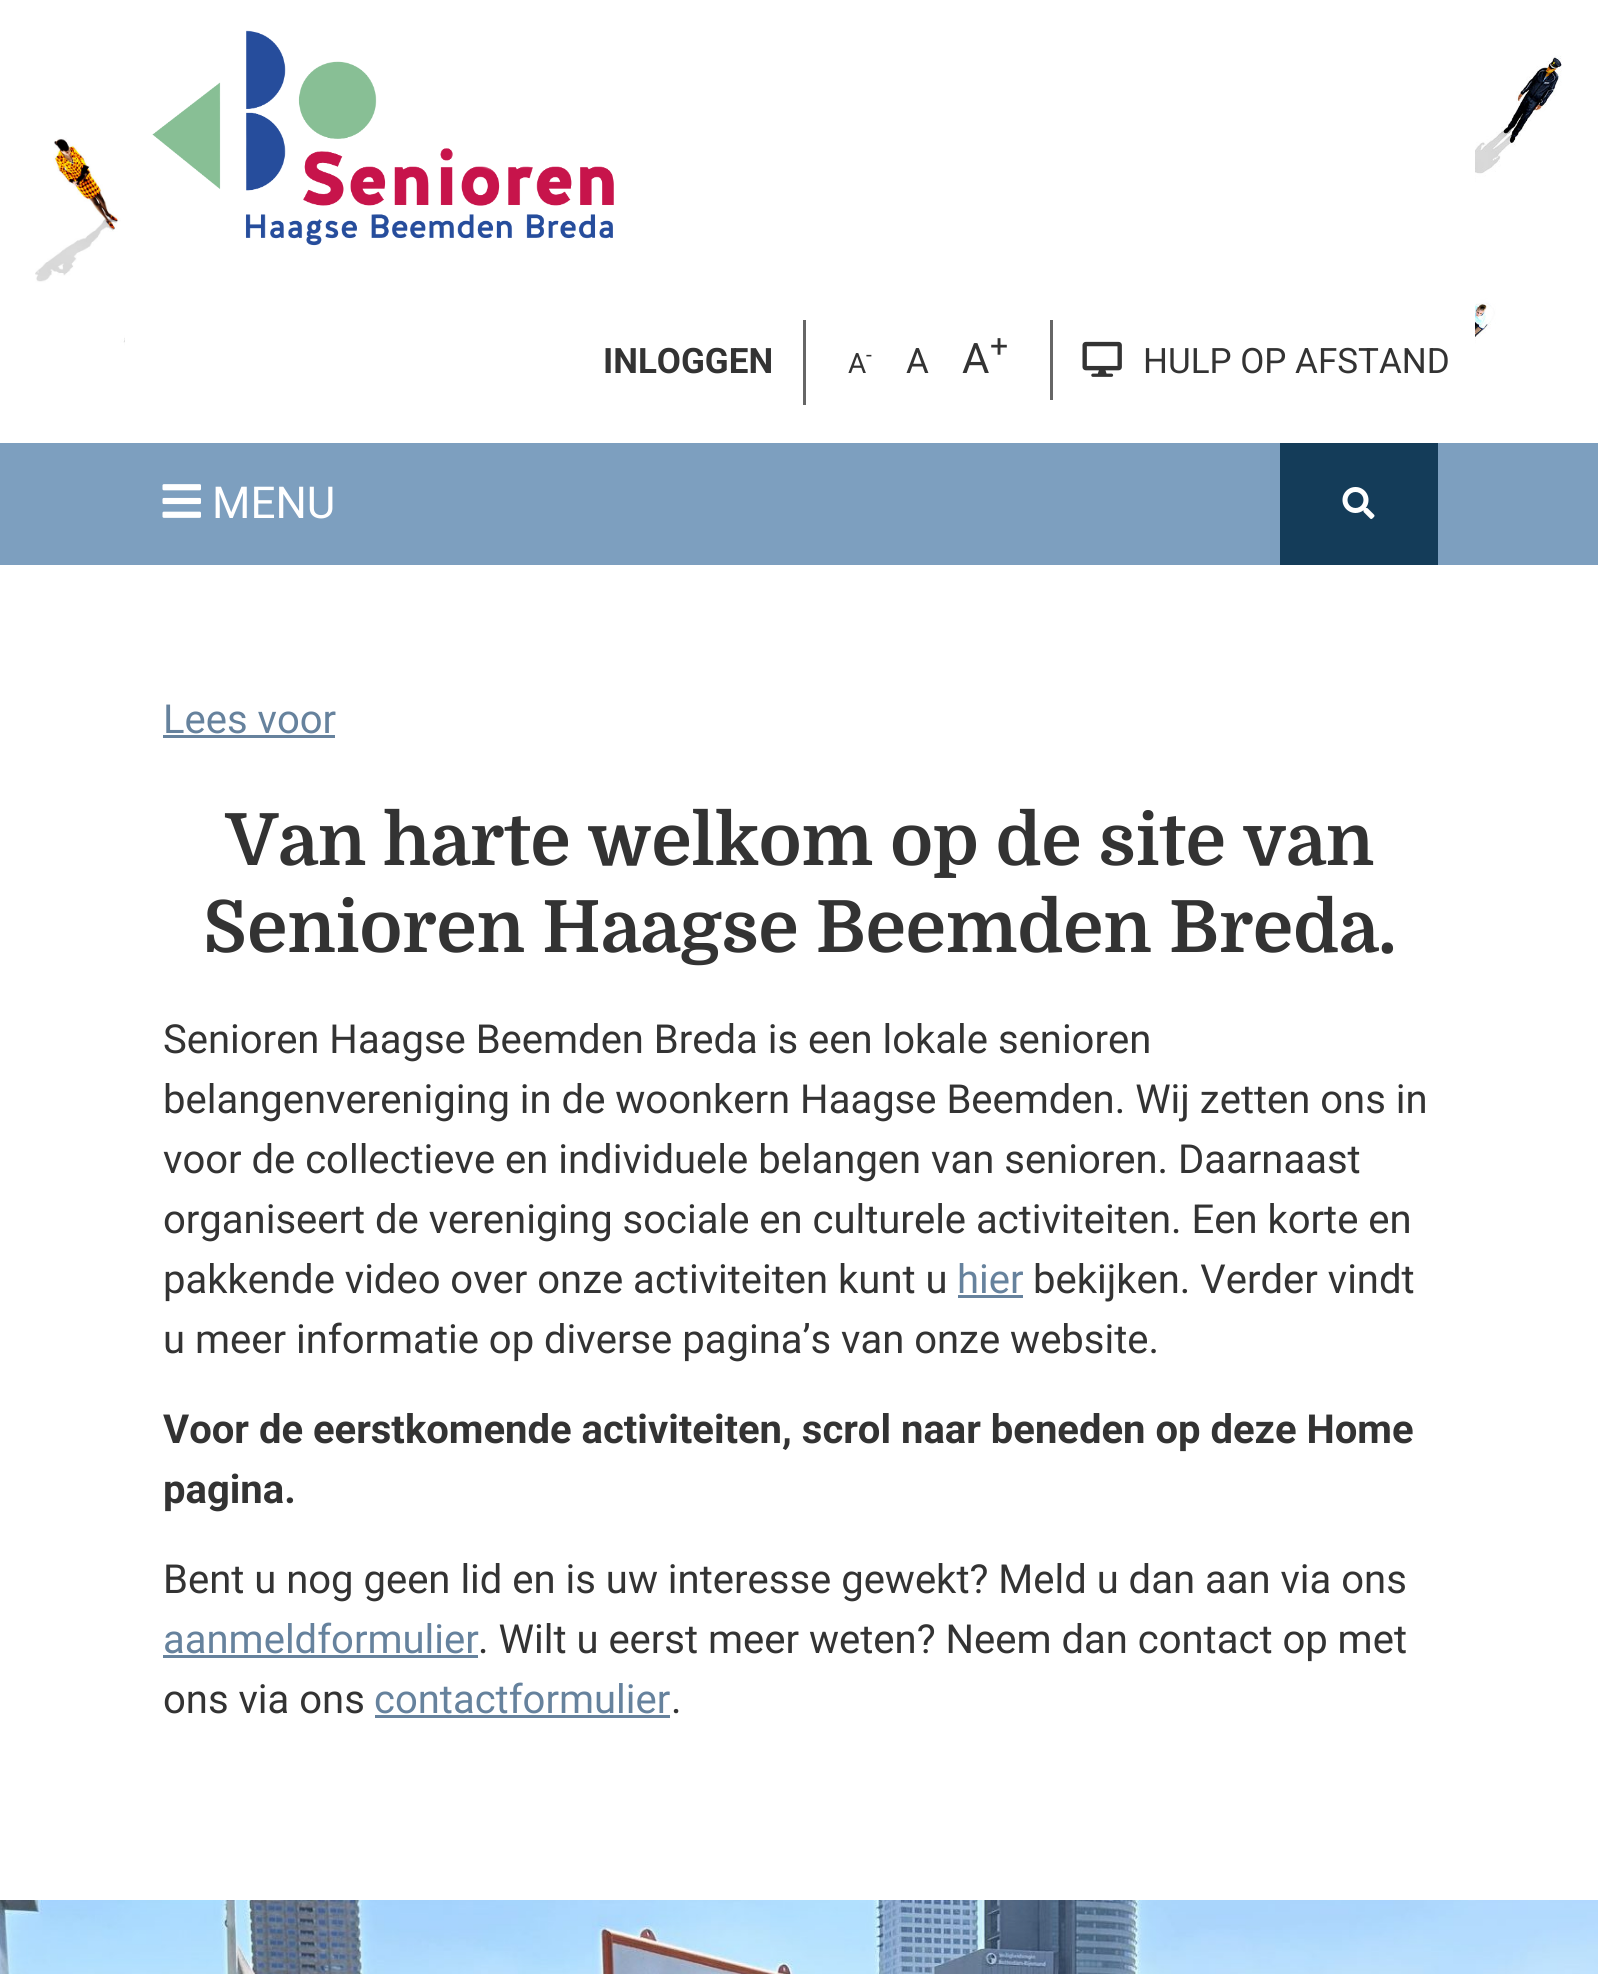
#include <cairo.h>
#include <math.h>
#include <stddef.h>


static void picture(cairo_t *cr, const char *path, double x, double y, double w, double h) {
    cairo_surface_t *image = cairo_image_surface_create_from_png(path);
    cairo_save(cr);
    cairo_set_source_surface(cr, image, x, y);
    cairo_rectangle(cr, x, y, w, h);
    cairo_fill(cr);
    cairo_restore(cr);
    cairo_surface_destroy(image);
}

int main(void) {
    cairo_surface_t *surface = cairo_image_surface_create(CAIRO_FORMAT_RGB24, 1598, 1974);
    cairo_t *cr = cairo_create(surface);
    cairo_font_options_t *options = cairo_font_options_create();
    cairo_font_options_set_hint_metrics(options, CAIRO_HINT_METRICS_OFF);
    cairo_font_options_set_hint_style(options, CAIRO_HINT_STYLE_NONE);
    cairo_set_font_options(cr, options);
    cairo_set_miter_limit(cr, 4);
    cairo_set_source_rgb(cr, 1, 1, 1);
    cairo_paint(cr);
    picture(cr, "img1.png", 35, 47, 90, 396);
    picture(cr, "img2.png", 1475, 20, 87, 392);
    picture(cr, "img3.png", 152, 30, 462, 216);
    cairo_select_font_face(cr, "Roboto", CAIRO_FONT_SLANT_NORMAL, CAIRO_FONT_WEIGHT_BOLD);
    cairo_set_font_size(cr, 35);
    cairo_set_source_rgb(cr, 0.2, 0.2, 0.2);
    cairo_move_to(cr, 603, 373);
    cairo_show_text(cr, "INLOGGEN");
    cairo_set_source_rgb(cr, 0.4, 0.4, 0.4);
    cairo_rectangle(cr, 803, 320, 3, 85);
    cairo_fill(cr);
    cairo_select_font_face(cr, "Roboto", CAIRO_FONT_SLANT_NORMAL, CAIRO_FONT_WEIGHT_NORMAL);
    cairo_set_font_size(cr, 28);
    cairo_set_source_rgb(cr, 0.2, 0.2, 0.2);
    cairo_move_to(cr, 848, 373);
    cairo_show_text(cr, "A");
    cairo_set_font_size(cr, 21);
    cairo_move_to(cr, 866, 362);
    cairo_show_text(cr, "-");
    cairo_set_font_size(cr, 35);
    cairo_move_to(cr, 906, 373);
    cairo_show_text(cr, "A");
    cairo_set_font_size(cr, 42);
    cairo_move_to(cr, 962, 373);
    cairo_show_text(cr, "A");
    cairo_set_font_size(cr, 32);
    cairo_move_to(cr, 990, 357);
    cairo_show_text(cr, "+");
    cairo_set_source_rgb(cr, 0.4, 0.4, 0.4);
    cairo_rectangle(cr, 1050, 320, 3, 80);
    cairo_fill(cr);
    picture(cr, "img4.png", 1082, 341, 40, 36);
    cairo_set_font_size(cr, 35);
    cairo_set_source_rgb(cr, 0.2, 0.2, 0.2);
    cairo_move_to(cr, 1143, 373);
    cairo_show_text(cr, "HULP OP AFSTAND");
    cairo_set_source_rgb(cr, 0.49, 0.624, 0.749);
    cairo_rectangle(cr, 0, 443, 1598, 122);
    cairo_fill(cr);
    picture(cr, "img5.png", 162, 484, 39, 34);
    cairo_set_font_size(cr, 44);
    cairo_set_source_rgb(cr, 1, 1, 1);
    cairo_move_to(cr, 212, 518);
    cairo_show_text(cr, "MENU");
    cairo_set_source_rgb(cr, 0.082, 0.235, 0.349);
    cairo_rectangle(cr, 1280, 443, 158, 122);
    cairo_fill(cr);
    picture(cr, "img6.png", 1342, 487, 33, 32);
    cairo_set_font_size(cr, 40);
    cairo_set_source_rgb(cr, 0.4, 0.51, 0.616);
    cairo_move_to(cr, 163, 733);
    cairo_show_text(cr, "Lees voor");
    cairo_rectangle(cr, 163, 735, 172, 3);
    cairo_fill(cr);
    cairo_select_font_face(cr, "Domine", CAIRO_FONT_SLANT_NORMAL, CAIRO_FONT_WEIGHT_BOLD);
    cairo_set_font_size(cr, 72);
    cairo_set_source_rgb(cr, 0.2, 0.2, 0.2);
    cairo_move_to(cr, 226, 865);
    cairo_show_text(cr, "Van harte welkom op de site van");
    cairo_move_to(cr, 203, 952);
    cairo_show_text(cr, "Senioren Haagse Beemden Breda.");
    cairo_select_font_face(cr, "Roboto", CAIRO_FONT_SLANT_NORMAL, CAIRO_FONT_WEIGHT_NORMAL);
    cairo_set_font_size(cr, 40);
    cairo_move_to(cr, 163, 1053);
    cairo_show_text(cr, "Senioren Haagse Beemden Breda is een lokale senioren");
    cairo_move_to(cr, 163, 1113);
    cairo_show_text(cr, "belangenvereniging in de woonkern Haagse Beemden. Wij zetten ons in");
    cairo_move_to(cr, 163, 1173);
    cairo_show_text(cr, "voor de collectieve en individuele belangen van senioren. Daarnaast");
    cairo_move_to(cr, 163, 1233);
    cairo_show_text(cr, "organiseert de vereniging sociale en culturele activiteiten. Een korte en");
    cairo_move_to(cr, 163, 1293);
    cairo_show_text(cr, "pakkende video over onze activiteiten kunt u");
    cairo_set_source_rgb(cr, 0.4, 0.51, 0.616);
    cairo_move_to(cr, 957, 1293);
    cairo_show_text(cr, "hier");
    cairo_rectangle(cr, 958, 1295, 65, 3);
    cairo_fill(cr);
    cairo_set_source_rgb(cr, 0.2, 0.2, 0.2);
    cairo_move_to(cr, 1033, 1293);
    cairo_show_text(cr, "bekijken. Verder vindt");
    cairo_move_to(cr, 163, 1353);
    cairo_show_text(cr, "u meer informatie op diverse pagina’s van onze website.");
    cairo_select_font_face(cr, "Roboto", CAIRO_FONT_SLANT_NORMAL, CAIRO_FONT_WEIGHT_BOLD);
    cairo_move_to(cr, 163, 1443);
    cairo_show_text(cr, "Voor de eerstkomende activiteiten, scrol naar beneden op deze Home");
    cairo_move_to(cr, 163, 1503);
    cairo_show_text(cr, "pagina.");
    cairo_select_font_face(cr, "Roboto", CAIRO_FONT_SLANT_NORMAL, CAIRO_FONT_WEIGHT_NORMAL);
    cairo_move_to(cr, 163, 1593);
    cairo_show_text(cr, "Bent u nog geen lid en is uw interesse gewekt? Meld u dan aan via ons");
    cairo_set_source_rgb(cr, 0.4, 0.51, 0.616);
    cairo_move_to(cr, 163, 1653);
    cairo_show_text(cr, "aanmeldformulier");
    cairo_rectangle(cr, 163, 1655, 315, 3);
    cairo_fill(cr);
    cairo_set_source_rgb(cr, 0.2, 0.2, 0.2);
    cairo_move_to(cr, 478, 1653);
    cairo_show_text(cr, ". Wilt u eerst meer weten? Neem dan contact op met");
    cairo_move_to(cr, 163, 1713);
    cairo_show_text(cr, "ons via ons");
    cairo_set_source_rgb(cr, 0.4, 0.51, 0.616);
    cairo_move_to(cr, 374, 1713);
    cairo_show_text(cr, "contactformulier");
    cairo_rectangle(cr, 375, 1715, 295, 3);
    cairo_fill(cr);
    cairo_set_source_rgb(cr, 0.2, 0.2, 0.2);
    cairo_move_to(cr, 671, 1713);
    cairo_show_text(cr, ".");
    picture(cr, "img7.png", 0, 1900, 1598, 74);
    cairo_surface_write_to_png(surface, "page.png");
    cairo_font_options_destroy(options);
    cairo_destroy(cr);
    cairo_surface_destroy(surface);
    return 0;
}
